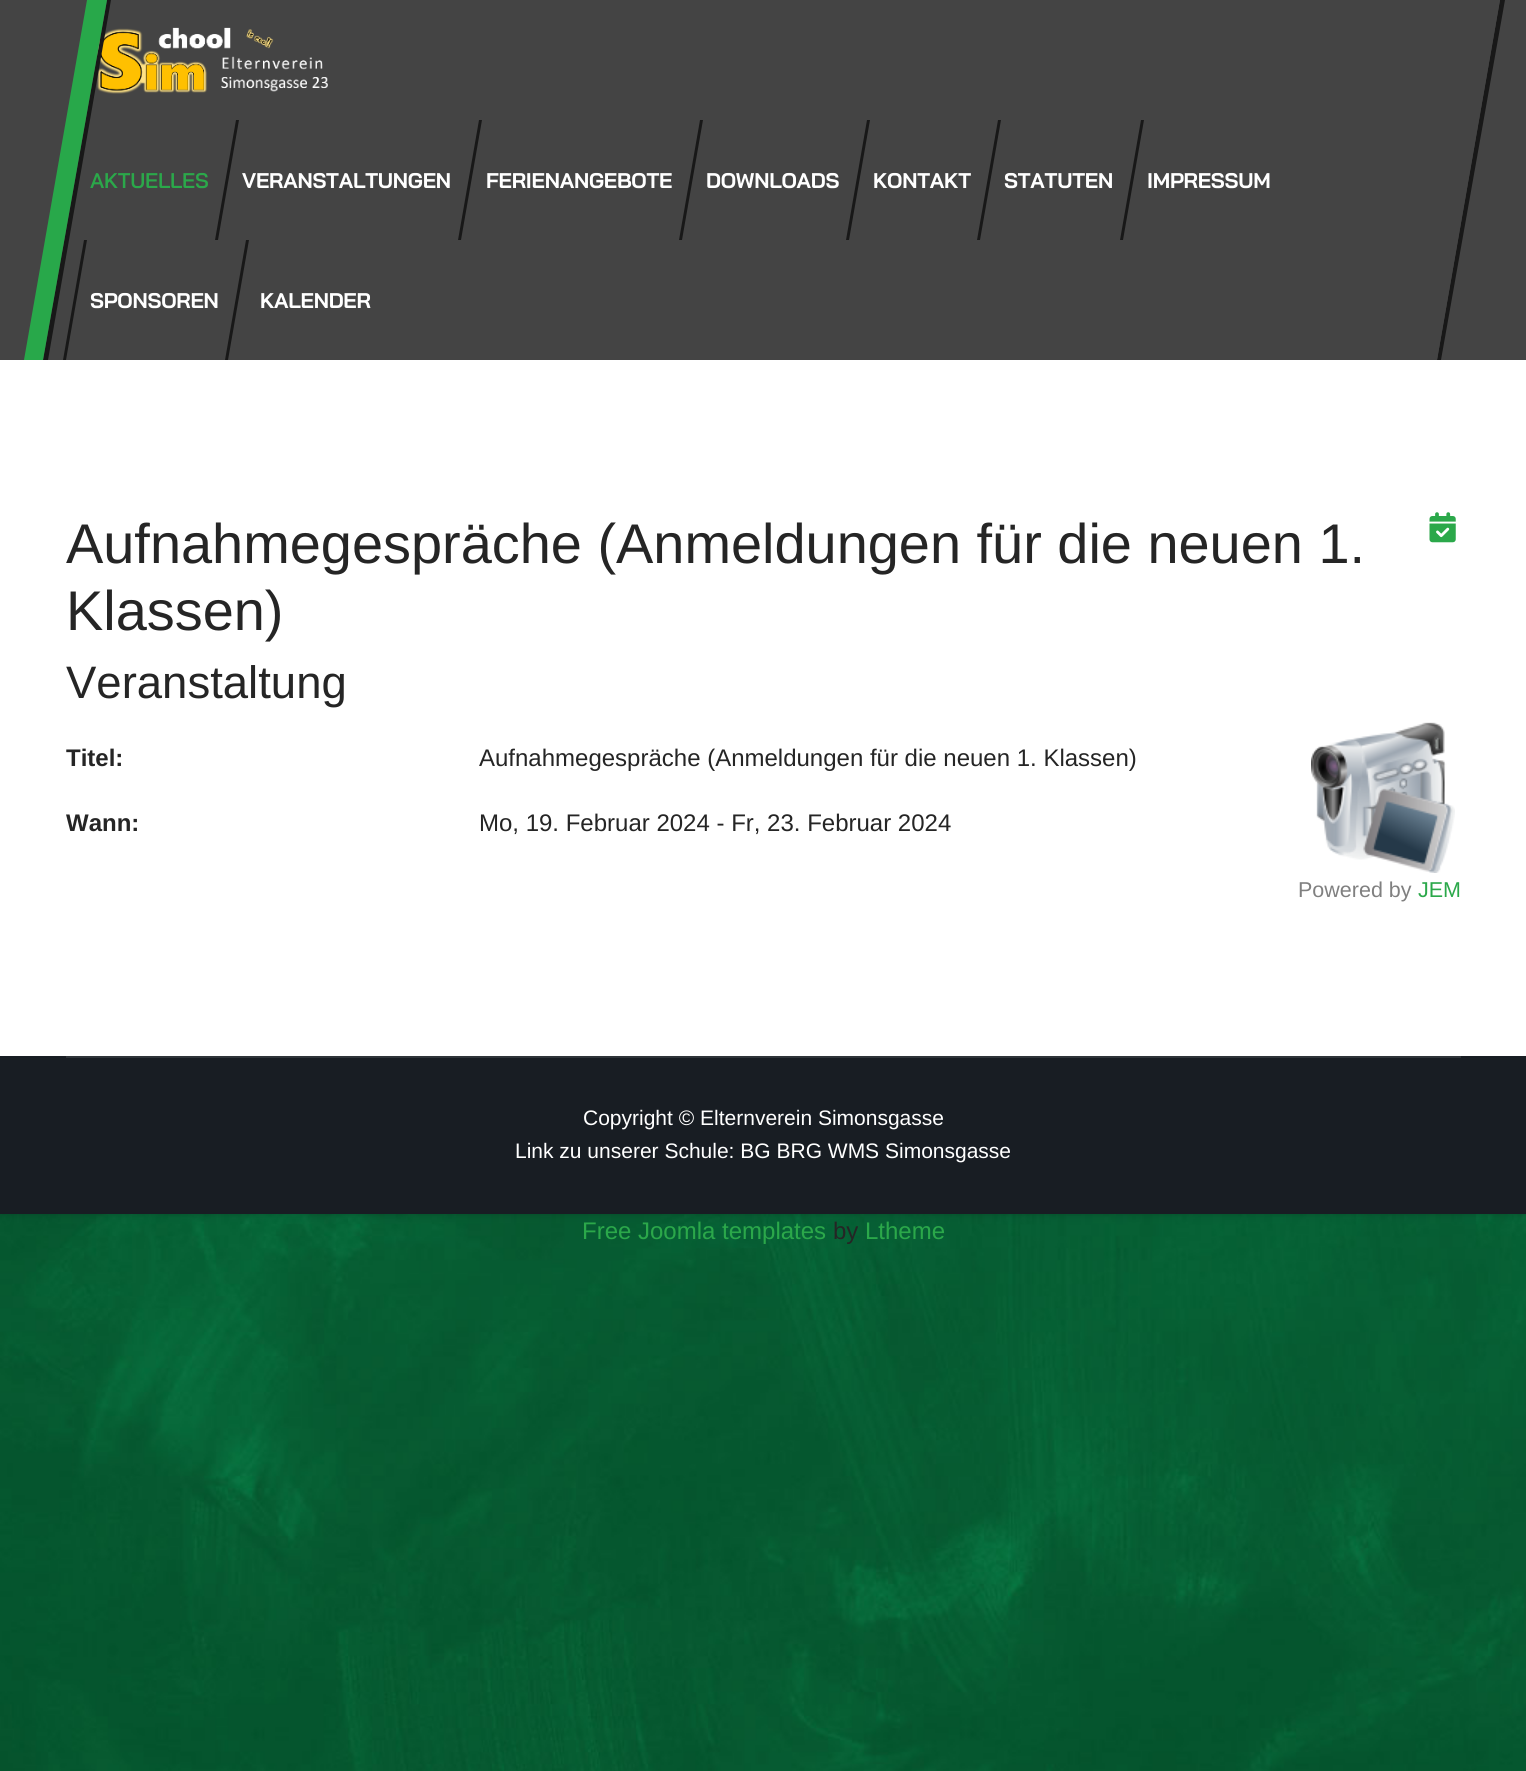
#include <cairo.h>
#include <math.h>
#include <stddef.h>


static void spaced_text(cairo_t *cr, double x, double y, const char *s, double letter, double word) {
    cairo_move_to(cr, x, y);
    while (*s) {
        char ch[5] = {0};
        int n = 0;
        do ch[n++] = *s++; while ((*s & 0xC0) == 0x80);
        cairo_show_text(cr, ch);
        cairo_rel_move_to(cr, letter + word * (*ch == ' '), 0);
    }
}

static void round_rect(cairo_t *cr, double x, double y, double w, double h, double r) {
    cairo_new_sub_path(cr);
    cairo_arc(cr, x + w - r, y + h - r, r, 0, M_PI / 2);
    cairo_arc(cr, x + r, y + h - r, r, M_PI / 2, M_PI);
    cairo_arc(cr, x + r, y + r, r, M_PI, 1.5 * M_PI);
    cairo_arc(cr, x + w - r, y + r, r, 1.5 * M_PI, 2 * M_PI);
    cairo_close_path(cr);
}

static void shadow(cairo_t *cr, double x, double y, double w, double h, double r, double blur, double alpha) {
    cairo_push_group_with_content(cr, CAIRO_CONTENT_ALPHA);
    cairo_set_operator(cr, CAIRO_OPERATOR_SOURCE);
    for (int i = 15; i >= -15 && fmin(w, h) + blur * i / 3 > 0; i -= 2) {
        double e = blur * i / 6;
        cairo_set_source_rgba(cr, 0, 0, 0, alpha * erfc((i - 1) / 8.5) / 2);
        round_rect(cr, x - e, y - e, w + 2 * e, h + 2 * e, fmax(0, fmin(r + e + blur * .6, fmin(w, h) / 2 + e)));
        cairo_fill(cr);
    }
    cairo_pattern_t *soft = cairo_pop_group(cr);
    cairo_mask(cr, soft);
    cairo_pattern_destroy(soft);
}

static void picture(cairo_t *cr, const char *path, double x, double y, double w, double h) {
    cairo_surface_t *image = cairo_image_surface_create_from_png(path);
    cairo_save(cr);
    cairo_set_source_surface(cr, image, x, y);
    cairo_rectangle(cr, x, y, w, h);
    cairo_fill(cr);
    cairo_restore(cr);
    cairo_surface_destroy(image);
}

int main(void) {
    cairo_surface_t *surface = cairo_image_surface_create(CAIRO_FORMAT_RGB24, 1526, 1771);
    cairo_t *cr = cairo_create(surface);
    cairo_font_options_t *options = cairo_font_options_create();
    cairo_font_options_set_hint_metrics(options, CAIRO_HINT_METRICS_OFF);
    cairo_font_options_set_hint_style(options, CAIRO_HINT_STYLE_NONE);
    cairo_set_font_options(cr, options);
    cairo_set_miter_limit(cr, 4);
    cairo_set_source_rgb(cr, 1, 1, 1);
    cairo_paint(cr);
    picture(cr, "img1.png", 0, 1214, 1526, 557);
    cairo_set_source_rgb(cr, 0, 0, 0);
    shadow(cr, 0, 0, 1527, 1214, 0, 4, 0.2);
    cairo_set_source_rgb(cr, 1, 1, 1);
    cairo_rectangle(cr, 0, 360, 1526, 696);
    cairo_fill(cr);
    cairo_set_source_rgb(cr, 0.267, 0.267, 0.267);
    cairo_rectangle(cr, 0, 0, 1526, 360);
    cairo_fill(cr);
    picture(cr, "img2.png", 96, 27, 232, 67);
    cairo_select_font_face(cr, "Bai Jamjuree SemiBold", CAIRO_FONT_SLANT_NORMAL, CAIRO_FONT_WEIGHT_NORMAL);
    cairo_set_font_size(cr, 21.25);
    cairo_set_source_rgb(cr, 0.169, 0.659, 0.29);
    spaced_text(cr, 90, 188, "AKTUELLES", -0.25, 0);
    cairo_set_source_rgb(cr, 0.094, 0.094, 0.094);
    cairo_new_path(cr);
    cairo_move_to(cr, 84, 240);
    cairo_line_to(cr, 87, 240);
    cairo_line_to(cr, 66, 360);
    cairo_line_to(cr, 63, 360);
    cairo_close_path(cr);
    cairo_fill(cr);
    cairo_select_font_face(cr, "Bai Jamjuree", CAIRO_FONT_SLANT_NORMAL, CAIRO_FONT_WEIGHT_BOLD);
    cairo_set_source_rgb(cr, 1, 1, 1);
    spaced_text(cr, 90, 308, "SPONSOREN", -0.25, 0);
    cairo_set_source_rgb(cr, 0.094, 0.094, 0.094);
    cairo_new_path(cr);
    cairo_move_to(cr, 43, 360);
    cairo_line_to(cr, 48, 360);
    cairo_line_to(cr, 111, 0);
    cairo_line_to(cr, 107, 0);
    cairo_close_path(cr);
    cairo_fill(cr);
    cairo_set_source_rgb(cr, 0.157, 0.659, 0.29);
    cairo_new_path(cr);
    cairo_move_to(cr, 87, 0);
    cairo_line_to(cr, 107, 0);
    cairo_line_to(cr, 43, 360);
    cairo_line_to(cr, 24, 360);
    cairo_close_path(cr);
    cairo_fill(cr);
    cairo_set_source_rgb(cr, 0.094, 0.094, 0.094);
    cairo_new_path(cr);
    cairo_move_to(cr, 236, 120);
    cairo_line_to(cr, 239, 120);
    cairo_line_to(cr, 218, 240);
    cairo_line_to(cr, 215, 240);
    cairo_close_path(cr);
    cairo_fill(cr);
    cairo_set_source_rgb(cr, 1, 1, 1);
    spaced_text(cr, 242, 188, "VERANSTALTUNGEN", -0.25, 0);
    cairo_set_source_rgb(cr, 0.094, 0.094, 0.094);
    cairo_new_path(cr);
    cairo_move_to(cr, 479, 120);
    cairo_line_to(cr, 482, 120);
    cairo_line_to(cr, 461, 240);
    cairo_line_to(cr, 458, 240);
    cairo_close_path(cr);
    cairo_fill(cr);
    cairo_set_source_rgb(cr, 1, 1, 1);
    spaced_text(cr, 486, 188, "FERIENANGEBOTE", -0.25, 0);
    cairo_set_source_rgb(cr, 0.094, 0.094, 0.094);
    cairo_new_path(cr);
    cairo_move_to(cr, 700, 120);
    cairo_line_to(cr, 703, 120);
    cairo_line_to(cr, 682, 240);
    cairo_line_to(cr, 679, 240);
    cairo_close_path(cr);
    cairo_fill(cr);
    cairo_set_source_rgb(cr, 1, 1, 1);
    spaced_text(cr, 706, 188, "DOWNLOADS", -0.25, 0);
    cairo_set_source_rgb(cr, 0.094, 0.094, 0.094);
    cairo_new_path(cr);
    cairo_move_to(cr, 867, 120);
    cairo_line_to(cr, 870, 120);
    cairo_line_to(cr, 849, 240);
    cairo_line_to(cr, 846, 240);
    cairo_close_path(cr);
    cairo_fill(cr);
    cairo_set_source_rgb(cr, 1, 1, 1);
    spaced_text(cr, 873, 188, "KONTAKT", -0.25, 0);
    cairo_set_source_rgb(cr, 0.094, 0.094, 0.094);
    cairo_new_path(cr);
    cairo_move_to(cr, 998, 120);
    cairo_line_to(cr, 1001, 120);
    cairo_line_to(cr, 980, 240);
    cairo_line_to(cr, 977, 240);
    cairo_close_path(cr);
    cairo_fill(cr);
    cairo_set_source_rgb(cr, 1, 1, 1);
    spaced_text(cr, 1004, 188, "STATUTEN", -0.25, 0);
    cairo_set_source_rgb(cr, 0.094, 0.094, 0.094);
    cairo_new_path(cr);
    cairo_move_to(cr, 1141, 120);
    cairo_line_to(cr, 1144, 120);
    cairo_line_to(cr, 1123, 240);
    cairo_line_to(cr, 1120, 240);
    cairo_close_path(cr);
    cairo_fill(cr);
    cairo_set_source_rgb(cr, 1, 1, 1);
    spaced_text(cr, 1147, 188, "IMPRESSUM", -0.25, 0);
    cairo_set_source_rgb(cr, 0.094, 0.094, 0.094);
    cairo_new_path(cr);
    cairo_move_to(cr, 246, 240);
    cairo_line_to(cr, 249, 240);
    cairo_line_to(cr, 228, 360);
    cairo_line_to(cr, 225, 360);
    cairo_close_path(cr);
    cairo_fill(cr);
    cairo_set_source_rgb(cr, 1, 1, 1);
    spaced_text(cr, 260, 308, "KALENDER", -0.25, 0);
    cairo_set_source_rgb(cr, 0.094, 0.094, 0.094);
    cairo_new_path(cr);
    cairo_move_to(cr, 1437, 360);
    cairo_line_to(cr, 1441, 360);
    cairo_line_to(cr, 1505, 0);
    cairo_line_to(cr, 1500, 0);
    cairo_close_path(cr);
    cairo_fill(cr);
    cairo_set_source_rgb(cr, 0.267, 0.267, 0.267);
    cairo_new_path(cr);
    cairo_move_to(cr, 1481, 0);
    cairo_line_to(cr, 1500, 0);
    cairo_line_to(cr, 1437, 360);
    cairo_line_to(cr, 1417, 360);
    cairo_close_path(cr);
    cairo_fill(cr);
    cairo_select_font_face(cr, "Liberation Sans", CAIRO_FONT_SLANT_NORMAL, CAIRO_FONT_WEIGHT_NORMAL);
    cairo_set_font_size(cr, 55.9);
    cairo_set_source_rgb(cr, 0.145, 0.145, 0.145);
    cairo_move_to(cr, 66, 563);
    cairo_show_text(cr, "Aufnahmegespräche (Anmeldungen für die neuen 1.");
    cairo_move_to(cr, 66, 630);
    cairo_show_text(cr, "Klassen)");
    picture(cr, "img3.png", 1429, 512, 27, 31);
    cairo_set_font_size(cr, 45.5);
    cairo_move_to(cr, 66, 698);
    cairo_show_text(cr, "Veranstaltung");
    cairo_select_font_face(cr, "Liberation Sans", CAIRO_FONT_SLANT_NORMAL, CAIRO_FONT_WEIGHT_BOLD);
    cairo_set_font_size(cr, 24);
    cairo_move_to(cr, 66, 766);
    cairo_show_text(cr, "Titel:");
    cairo_select_font_face(cr, "Liberation Sans", CAIRO_FONT_SLANT_NORMAL, CAIRO_FONT_WEIGHT_NORMAL);
    cairo_move_to(cr, 479, 766);
    cairo_show_text(cr, "Aufnahmegespräche (Anmeldungen für die neuen 1. Klassen)");
    cairo_select_font_face(cr, "Liberation Sans", CAIRO_FONT_SLANT_NORMAL, CAIRO_FONT_WEIGHT_BOLD);
    cairo_move_to(cr, 66, 831);
    cairo_show_text(cr, "Wann:");
    cairo_select_font_face(cr, "Liberation Sans", CAIRO_FONT_SLANT_NORMAL, CAIRO_FONT_WEIGHT_NORMAL);
    cairo_move_to(cr, 479, 831);
    cairo_show_text(cr, "Mo, 19. Februar 2024 - Fr, 23. Februar 2024");
    picture(cr, "img4.png", 1311, 722, 144, 151);
    cairo_set_font_size(cr, 21.5);
    cairo_set_source_rgb(cr, 0.502, 0.502, 0.502);
    cairo_move_to(cr, 1298, 897);
    cairo_show_text(cr, "Powered by");
    cairo_set_source_rgb(cr, 0.169, 0.659, 0.29);
    cairo_move_to(cr, 1418, 897);
    cairo_show_text(cr, "JEM");
    cairo_set_source_rgb(cr, 0.094, 0.114, 0.137);
    cairo_rectangle(cr, 0, 1056, 1526, 158);
    cairo_fill(cr);
    cairo_set_source_rgb(cr, 0.184, 0.204, 0.224);
    cairo_rectangle(cr, 66, 1056, 1395, 2);
    cairo_fill(cr);
    cairo_set_font_size(cr, 21);
    cairo_set_source_rgb(cr, 1, 1, 1);
    cairo_move_to(cr, 583, 1125);
    cairo_show_text(cr, "Copyright © Elternverein Simonsgasse");
    cairo_move_to(cr, 515, 1158);
    cairo_show_text(cr, "Link zu unserer Schule: BG BRG WMS Simonsgasse");
    cairo_set_font_size(cr, 24);
    cairo_set_source_rgb(cr, 0.169, 0.659, 0.29);
    cairo_move_to(cr, 582, 1239);
    cairo_show_text(cr, "Free Joomla templates");
    cairo_set_source_rgb(cr, 0.145, 0.145, 0.145);
    cairo_move_to(cr, 833, 1239);
    cairo_show_text(cr, "by");
    cairo_set_source_rgb(cr, 0.169, 0.659, 0.29);
    cairo_move_to(cr, 865, 1239);
    cairo_show_text(cr, "Ltheme");
    cairo_surface_write_to_png(surface, "page.png");
    cairo_font_options_destroy(options);
    cairo_destroy(cr);
    cairo_surface_destroy(surface);
    return 0;
}
